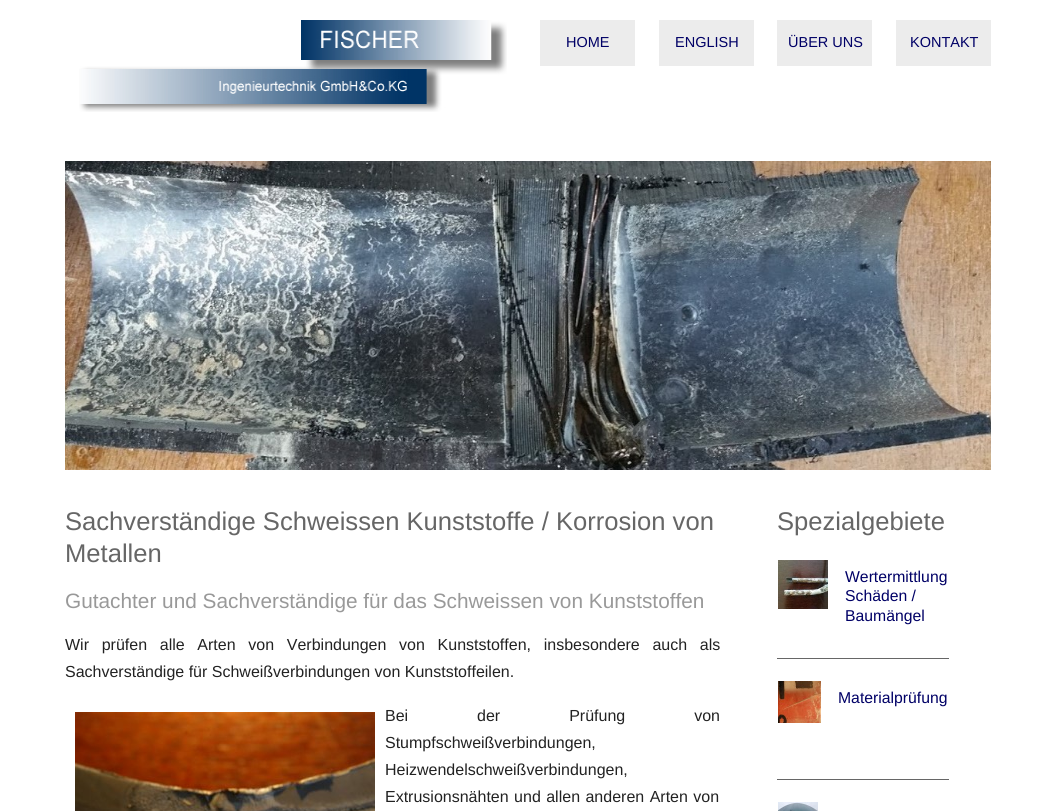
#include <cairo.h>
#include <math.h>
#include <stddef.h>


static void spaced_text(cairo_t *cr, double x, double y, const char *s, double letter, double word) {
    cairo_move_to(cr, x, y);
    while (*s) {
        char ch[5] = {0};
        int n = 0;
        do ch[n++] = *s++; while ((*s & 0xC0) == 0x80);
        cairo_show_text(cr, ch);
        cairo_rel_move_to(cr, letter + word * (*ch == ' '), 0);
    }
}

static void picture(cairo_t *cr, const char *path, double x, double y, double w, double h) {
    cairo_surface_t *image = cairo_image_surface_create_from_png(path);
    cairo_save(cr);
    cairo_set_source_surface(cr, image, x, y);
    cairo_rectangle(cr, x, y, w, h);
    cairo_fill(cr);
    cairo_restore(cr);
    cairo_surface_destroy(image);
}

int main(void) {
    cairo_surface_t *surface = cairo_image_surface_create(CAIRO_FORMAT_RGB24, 1056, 811);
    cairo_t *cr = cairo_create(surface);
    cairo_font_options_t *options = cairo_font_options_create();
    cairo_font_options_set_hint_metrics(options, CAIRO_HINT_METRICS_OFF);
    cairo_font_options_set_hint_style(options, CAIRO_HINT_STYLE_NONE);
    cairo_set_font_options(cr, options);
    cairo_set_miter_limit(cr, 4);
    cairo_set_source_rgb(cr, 1, 1, 1);
    cairo_paint(cr);
    picture(cr, "img1.png", 79, 20, 428, 92);
    cairo_set_source_rgb(cr, 0.922, 0.922, 0.922);
    cairo_rectangle(cr, 540, 20, 95, 46);
    cairo_fill(cr);
    cairo_select_font_face(cr, "Liberation Sans", CAIRO_FONT_SLANT_NORMAL, CAIRO_FONT_WEIGHT_NORMAL);
    cairo_set_font_size(cr, 14.5);
    cairo_set_source_rgb(cr, 0, 0, 0.4);
    cairo_move_to(cr, 566, 47);
    cairo_show_text(cr, "HOME");
    cairo_set_source_rgb(cr, 0.922, 0.922, 0.922);
    cairo_rectangle(cr, 659, 20, 95, 46);
    cairo_fill(cr);
    cairo_set_source_rgb(cr, 0, 0, 0.4);
    cairo_move_to(cr, 675, 47);
    cairo_show_text(cr, "ENGLISH");
    cairo_set_source_rgb(cr, 0.922, 0.922, 0.922);
    cairo_rectangle(cr, 777, 20, 95, 46);
    cairo_fill(cr);
    cairo_set_source_rgb(cr, 0, 0, 0.4);
    cairo_move_to(cr, 788, 47);
    cairo_show_text(cr, "ÜBER UNS");
    cairo_set_source_rgb(cr, 0.922, 0.922, 0.922);
    cairo_rectangle(cr, 896, 20, 95, 46);
    cairo_fill(cr);
    cairo_set_source_rgb(cr, 0, 0, 0.4);
    cairo_move_to(cr, 910, 47);
    cairo_show_text(cr, "KONTAKT");
    picture(cr, "img2.png", 65, 161, 926, 309);
    cairo_set_font_size(cr, 25.6);
    cairo_set_source_rgb(cr, 0.4, 0.4, 0.4);
    cairo_move_to(cr, 65, 530);
    cairo_show_text(cr, "Sachverständige Schweissen Kunststoffe / Korrosion von");
    cairo_move_to(cr, 65, 562);
    cairo_show_text(cr, "Metallen");
    cairo_set_font_size(cr, 20.8);
    cairo_set_source_rgb(cr, 0.6, 0.6, 0.6);
    cairo_move_to(cr, 65, 608);
    cairo_show_text(cr, "Gutachter und Sachverständige für das Schweissen von Kunststoffen");
    cairo_set_font_size(cr, 16);
    cairo_set_source_rgb(cr, 0.133, 0.133, 0.133);
    spaced_text(cr, 65, 650, "Wir prüfen alle Arten von Verbindungen von Kunststoffen, insbesondere auch als", 0, 8.25);
    cairo_move_to(cr, 65, 677);
    cairo_show_text(cr, "Sachverständige für Schweißverbindungen von Kunststoffeilen.");
    picture(cr, "img3.png", 75, 712, 300, 99);
    spaced_text(cr, 385, 721, "Bei der Prüfung von", 0, 64.5);
    cairo_move_to(cr, 385, 748);
    cairo_show_text(cr, "Stumpfschweißverbindungen,");
    cairo_move_to(cr, 385, 775);
    cairo_show_text(cr, "Heizwendelschweißverbindungen,");
    spaced_text(cr, 385, 802, "Extrusionsnähten und allen anderen Arten von", 0, 1);
    cairo_set_font_size(cr, 25.6);
    cairo_set_source_rgb(cr, 0.4, 0.4, 0.4);
    cairo_move_to(cr, 777, 530);
    cairo_show_text(cr, "Spezialgebiete");
    cairo_rectangle(cr, 777, 658, 172, 1);
    cairo_fill(cr);
    picture(cr, "img4.png", 778, 560, 50, 49);
    cairo_set_font_size(cr, 15.75);
    cairo_set_source_rgb(cr, 0, 0, 0.4);
    cairo_move_to(cr, 845, 582);
    cairo_show_text(cr, "Wertermittlung");
    cairo_move_to(cr, 845, 601);
    cairo_show_text(cr, "Schäden /");
    cairo_move_to(cr, 845, 621);
    cairo_show_text(cr, "Baumängel");
    cairo_set_source_rgb(cr, 0.4, 0.4, 0.4);
    cairo_rectangle(cr, 777, 779, 172, 1);
    cairo_fill(cr);
    picture(cr, "img5.png", 778, 681, 43, 42);
    cairo_set_source_rgb(cr, 0, 0, 0.4);
    cairo_move_to(cr, 838, 703);
    cairo_show_text(cr, "Materialprüfung");
    picture(cr, "img6.png", 778, 802, 40, 9);
    cairo_surface_write_to_png(surface, "page.png");
    cairo_font_options_destroy(options);
    cairo_destroy(cr);
    cairo_surface_destroy(surface);
    return 0;
}
